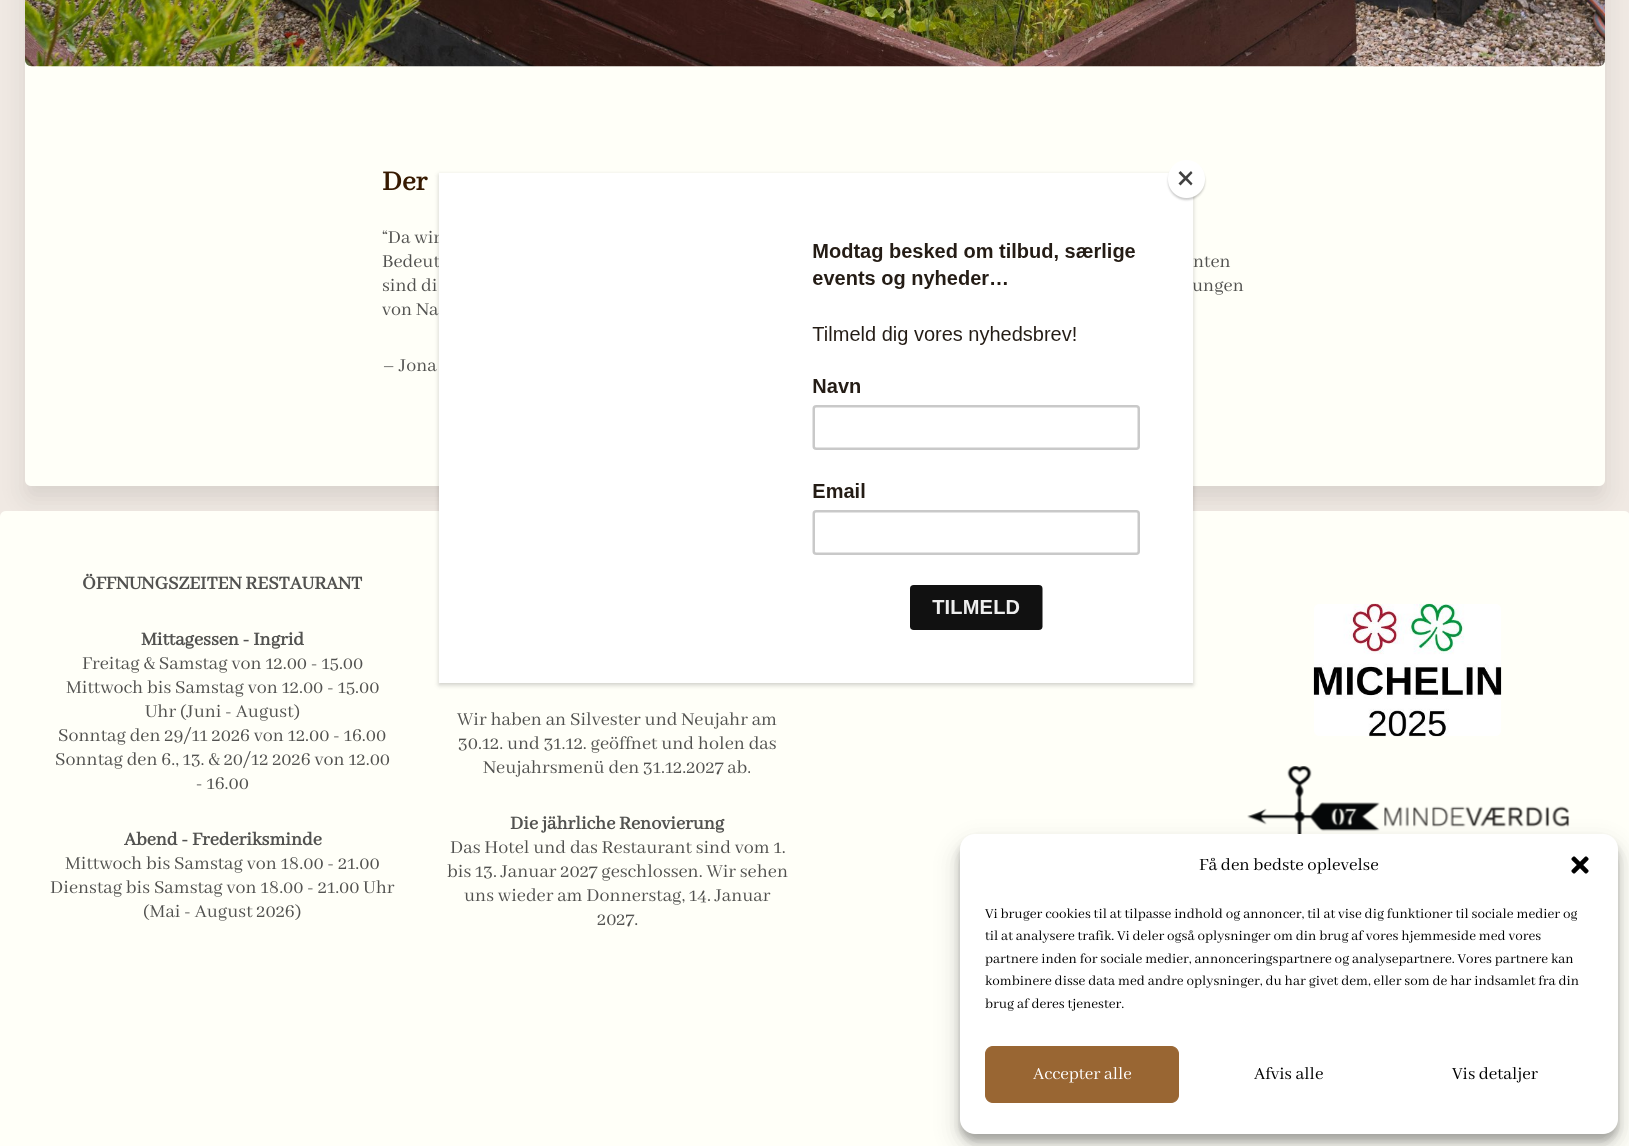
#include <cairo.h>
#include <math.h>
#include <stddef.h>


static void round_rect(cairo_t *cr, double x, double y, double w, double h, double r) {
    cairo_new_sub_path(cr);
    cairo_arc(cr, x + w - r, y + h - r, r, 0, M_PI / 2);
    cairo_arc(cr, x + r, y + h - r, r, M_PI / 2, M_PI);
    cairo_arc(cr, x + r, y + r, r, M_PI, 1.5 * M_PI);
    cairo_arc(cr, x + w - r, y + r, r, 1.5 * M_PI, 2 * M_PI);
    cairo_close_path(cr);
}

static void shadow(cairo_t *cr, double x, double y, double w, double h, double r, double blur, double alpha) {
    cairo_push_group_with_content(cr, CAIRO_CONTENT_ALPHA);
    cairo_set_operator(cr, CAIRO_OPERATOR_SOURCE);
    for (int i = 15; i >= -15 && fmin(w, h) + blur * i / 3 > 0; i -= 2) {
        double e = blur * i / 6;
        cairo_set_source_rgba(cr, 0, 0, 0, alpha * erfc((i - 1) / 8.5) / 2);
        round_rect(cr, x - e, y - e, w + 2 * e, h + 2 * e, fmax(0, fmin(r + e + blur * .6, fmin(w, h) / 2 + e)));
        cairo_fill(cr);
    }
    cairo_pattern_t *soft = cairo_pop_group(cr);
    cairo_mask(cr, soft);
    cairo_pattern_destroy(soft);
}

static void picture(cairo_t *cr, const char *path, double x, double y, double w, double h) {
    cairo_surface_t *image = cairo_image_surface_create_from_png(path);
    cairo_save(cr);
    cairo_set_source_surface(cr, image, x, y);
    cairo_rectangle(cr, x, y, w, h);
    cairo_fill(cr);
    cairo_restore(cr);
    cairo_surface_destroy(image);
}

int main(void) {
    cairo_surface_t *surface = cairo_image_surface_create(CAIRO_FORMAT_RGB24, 1629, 1146);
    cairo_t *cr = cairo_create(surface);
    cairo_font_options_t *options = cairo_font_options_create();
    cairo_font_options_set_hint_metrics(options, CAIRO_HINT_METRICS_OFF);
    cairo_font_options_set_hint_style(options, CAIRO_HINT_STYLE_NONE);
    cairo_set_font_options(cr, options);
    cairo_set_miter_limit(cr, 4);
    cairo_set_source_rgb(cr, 0.941, 0.914, 0.89);
    cairo_paint(cr);
    cairo_set_source_rgb(cr, 0, 0, 0);
    shadow(cr, 25, -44, 1580, 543, 6, 12.5, 0.1);
    cairo_set_source_rgb(cr, 1, 1, 0.969);
    round_rect(cr, 25, -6, 1580, 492, 6);
    cairo_fill(cr);
    cairo_new_path(cr);
    cairo_move_to(cr, 6, 511);
    cairo_line_to(cr, 1624, 511);
    cairo_curve_to(cr, 1627.5, 511, 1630, 513.5, 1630, 517);
    cairo_line_to(cr, 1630, 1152);
    cairo_line_to(cr, 0, 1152);
    cairo_line_to(cr, 0, 517);
    cairo_curve_to(cr, 0, 513.5, 2.5, 511, 6, 511);
    cairo_close_path(cr);
    cairo_fill(cr);
    cairo_set_source_rgb(cr, 0, 0, 0);
    shadow(cr, 439, 175, 754, 510, 0, 2.5, 0.2);
    cairo_select_font_face(cr, "Abhaya Libre", CAIRO_FONT_SLANT_NORMAL, CAIRO_FONT_WEIGHT_NORMAL);
    cairo_set_font_size(cr, 20);
    cairo_set_source_rgb(cr, 0.322, 0.322, 0.314);
    cairo_move_to(cr, 382, 243);
    cairo_show_text(cr, "“Da wir");
    cairo_move_to(cr, 382, 267);
    cairo_show_text(cr, "Bedeut");
    cairo_move_to(cr, 1192, 291);
    cairo_show_text(cr, "ungen");
    picture(cr, "img1.png", 439, 173, 754, 510);
    cairo_set_source_rgb(cr, 0, 0, 0);
    shadow(cr, 1168, 163, 37, 37, 18.5, 1, 0.2);
    cairo_set_source_rgb(cr, 1, 1, 1);
    round_rect(cr, 1168, 160, 37, 38, 18.5);
    cairo_fill(cr);
    cairo_set_source_rgb(cr, 0.255, 0.255, 0.255);
    cairo_new_path(cr);
    cairo_move_to(cr, 1191, 171);
    cairo_line_to(cr, 1192.5, 173);
    cairo_line_to(cr, 1180.5, 185.5);
    cairo_line_to(cr, 1178.5, 183.5);
    cairo_close_path(cr);
    cairo_fill(cr);
    cairo_new_path(cr);
    cairo_move_to(cr, 1178.5, 173);
    cairo_line_to(cr, 1180.5, 171);
    cairo_line_to(cr, 1192.5, 183.5);
    cairo_line_to(cr, 1191, 185.5);
    cairo_close_path(cr);
    cairo_fill(cr);
    picture(cr, "img2.png", 25, 0, 1580, 67);
    cairo_select_font_face(cr, "Abhaya Libre", CAIRO_FONT_SLANT_NORMAL, CAIRO_FONT_WEIGHT_BOLD);
    cairo_set_font_size(cr, 30);
    cairo_set_source_rgb(cr, 0.216, 0.102, 0.004);
    cairo_move_to(cr, 382, 190);
    cairo_show_text(cr, "Der");
    cairo_select_font_face(cr, "Abhaya Libre", CAIRO_FONT_SLANT_NORMAL, CAIRO_FONT_WEIGHT_NORMAL);
    cairo_set_font_size(cr, 20);
    cairo_set_source_rgb(cr, 0.322, 0.322, 0.314);
    cairo_move_to(cr, 1193, 267);
    cairo_show_text(cr, "nten");
    cairo_move_to(cr, 382, 291);
    cairo_show_text(cr, "sind di");
    cairo_move_to(cr, 382, 315);
    cairo_show_text(cr, "von Na");
    cairo_move_to(cr, 382, 371);
    cairo_show_text(cr, "– Jona");
    cairo_select_font_face(cr, "Abhaya Libre", CAIRO_FONT_SLANT_NORMAL, CAIRO_FONT_WEIGHT_BOLD);
    cairo_move_to(cr, 82, 589);
    cairo_show_text(cr, "ÖFFNUNGSZEITEN RESTAURANT");
    cairo_move_to(cr, 141, 645);
    cairo_show_text(cr, "Mittagessen - Ingrid");
    cairo_select_font_face(cr, "Abhaya Libre", CAIRO_FONT_SLANT_NORMAL, CAIRO_FONT_WEIGHT_NORMAL);
    cairo_move_to(cr, 82, 669);
    cairo_show_text(cr, "Freitag & Samstag von 12.00 - 15.00");
    cairo_move_to(cr, 66, 693);
    cairo_show_text(cr, "Mittwoch bis Samstag von 12.00 - 15.00");
    cairo_move_to(cr, 145, 717);
    cairo_show_text(cr, "Uhr (Juni - August)");
    cairo_move_to(cr, 58, 741);
    cairo_show_text(cr, "Sonntag den 29/11 2026 von 12.00 - 16.00");
    cairo_move_to(cr, 55, 765);
    cairo_show_text(cr, "Sonntag den 6., 13. & 20/12 2026 von 12.00");
    cairo_move_to(cr, 196, 789);
    cairo_show_text(cr, "- 16.00");
    cairo_select_font_face(cr, "Abhaya Libre", CAIRO_FONT_SLANT_NORMAL, CAIRO_FONT_WEIGHT_BOLD);
    cairo_move_to(cr, 124, 845);
    cairo_show_text(cr, "Abend - Frederiksminde");
    cairo_select_font_face(cr, "Abhaya Libre", CAIRO_FONT_SLANT_NORMAL, CAIRO_FONT_WEIGHT_NORMAL);
    cairo_move_to(cr, 65, 869);
    cairo_show_text(cr, "Mittwoch bis Samstag von 18.00 - 21.00");
    cairo_move_to(cr, 50, 893);
    cairo_show_text(cr, "Dienstag bis Samstag von 18.00 - 21.00 Uhr");
    cairo_move_to(cr, 143, 917);
    cairo_show_text(cr, "(Mai - August 2026)");
    cairo_move_to(cr, 457, 725);
    cairo_show_text(cr, "Wir haben an Silvester und Neujahr am");
    cairo_move_to(cr, 458, 749);
    cairo_show_text(cr, "30.12. und 31.12. geöffnet und holen das");
    cairo_move_to(cr, 483, 773);
    cairo_show_text(cr, "Neujahrsmenü den 31.12.2027 ab.");
    cairo_select_font_face(cr, "Abhaya Libre", CAIRO_FONT_SLANT_NORMAL, CAIRO_FONT_WEIGHT_BOLD);
    cairo_move_to(cr, 510, 829);
    cairo_show_text(cr, "Die jährliche Renovierung");
    cairo_select_font_face(cr, "Abhaya Libre", CAIRO_FONT_SLANT_NORMAL, CAIRO_FONT_WEIGHT_NORMAL);
    cairo_move_to(cr, 450, 853);
    cairo_show_text(cr, "Das Hotel und das Restaurant sind vom 1.");
    cairo_move_to(cr, 447, 877);
    cairo_show_text(cr, "bis 13. Januar 2027 geschlossen. Wir sehen");
    cairo_move_to(cr, 464, 901);
    cairo_show_text(cr, "uns wieder am Donnerstag, 14. Januar");
    cairo_move_to(cr, 597, 925);
    cairo_show_text(cr, "2027.");
    picture(cr, "img3.png", 1313, 603, 189, 134);
    picture(cr, "img4.png", 1247, 766, 323, 68);
    cairo_set_source_rgb(cr, 0, 0, 0);
    shadow(cr, 960, 841, 658, 300, 15, 4, 0.23);
    shadow(cr, 960, 846, 658, 300, 15, 12.5, 0.19);
    cairo_set_source_rgb(cr, 1, 1, 1);
    round_rect(cr, 960, 834, 658, 300, 15);
    cairo_fill(cr);
    cairo_set_font_size(cr, 18.75);
    cairo_set_source_rgb(cr, 0, 0, 0);
    cairo_move_to(cr, 1199, 870);
    cairo_show_text(cr, "Få den bedste oplevelse");
    picture(cr, "img5.png", 1571, 856, 18, 18);
    cairo_set_font_size(cr, 15);
    cairo_move_to(cr, 985, 918);
    cairo_show_text(cr, "Vi bruger cookies til at tilpasse indhold og annoncer, til at vise dig funktioner til sociale medier og");
    cairo_move_to(cr, 985, 940);
    cairo_show_text(cr, "til at analysere trafik. Vi deler også oplysninger om din brug af vores hjemmeside med vores");
    cairo_move_to(cr, 985, 963);
    cairo_show_text(cr, "partnere inden for sociale medier, annonceringspartnere og analysepartnere. Vores partnere kan");
    cairo_move_to(cr, 985, 985);
    cairo_show_text(cr, "kombinere disse data med andre oplysninger, du har givet dem, eller som de har indsamlet fra din");
    cairo_move_to(cr, 985, 1008);
    cairo_show_text(cr, "brug af deres tjenester.");
    cairo_set_source_rgb(cr, 0.6, 0.4, 0.2);
    round_rect(cr, 985.5, 1046.5, 193, 56, 7.5);
    cairo_fill_preserve(cr);
    cairo_set_line_width(cr, 1);
    cairo_stroke(cr);
    cairo_set_font_size(cr, 18.75);
    cairo_set_source_rgb(cr, 1, 1, 1);
    cairo_move_to(cr, 1033, 1079);
    cairo_show_text(cr, "Accepter alle");
    cairo_set_source_rgb(cr, 0, 0, 0);
    cairo_move_to(cr, 1254, 1079);
    cairo_show_text(cr, "Afvis alle");
    cairo_move_to(cr, 1452, 1079);
    cairo_show_text(cr, "Vis detaljer");
    cairo_surface_write_to_png(surface, "page.png");
    cairo_font_options_destroy(options);
    cairo_destroy(cr);
    cairo_surface_destroy(surface);
    return 0;
}
